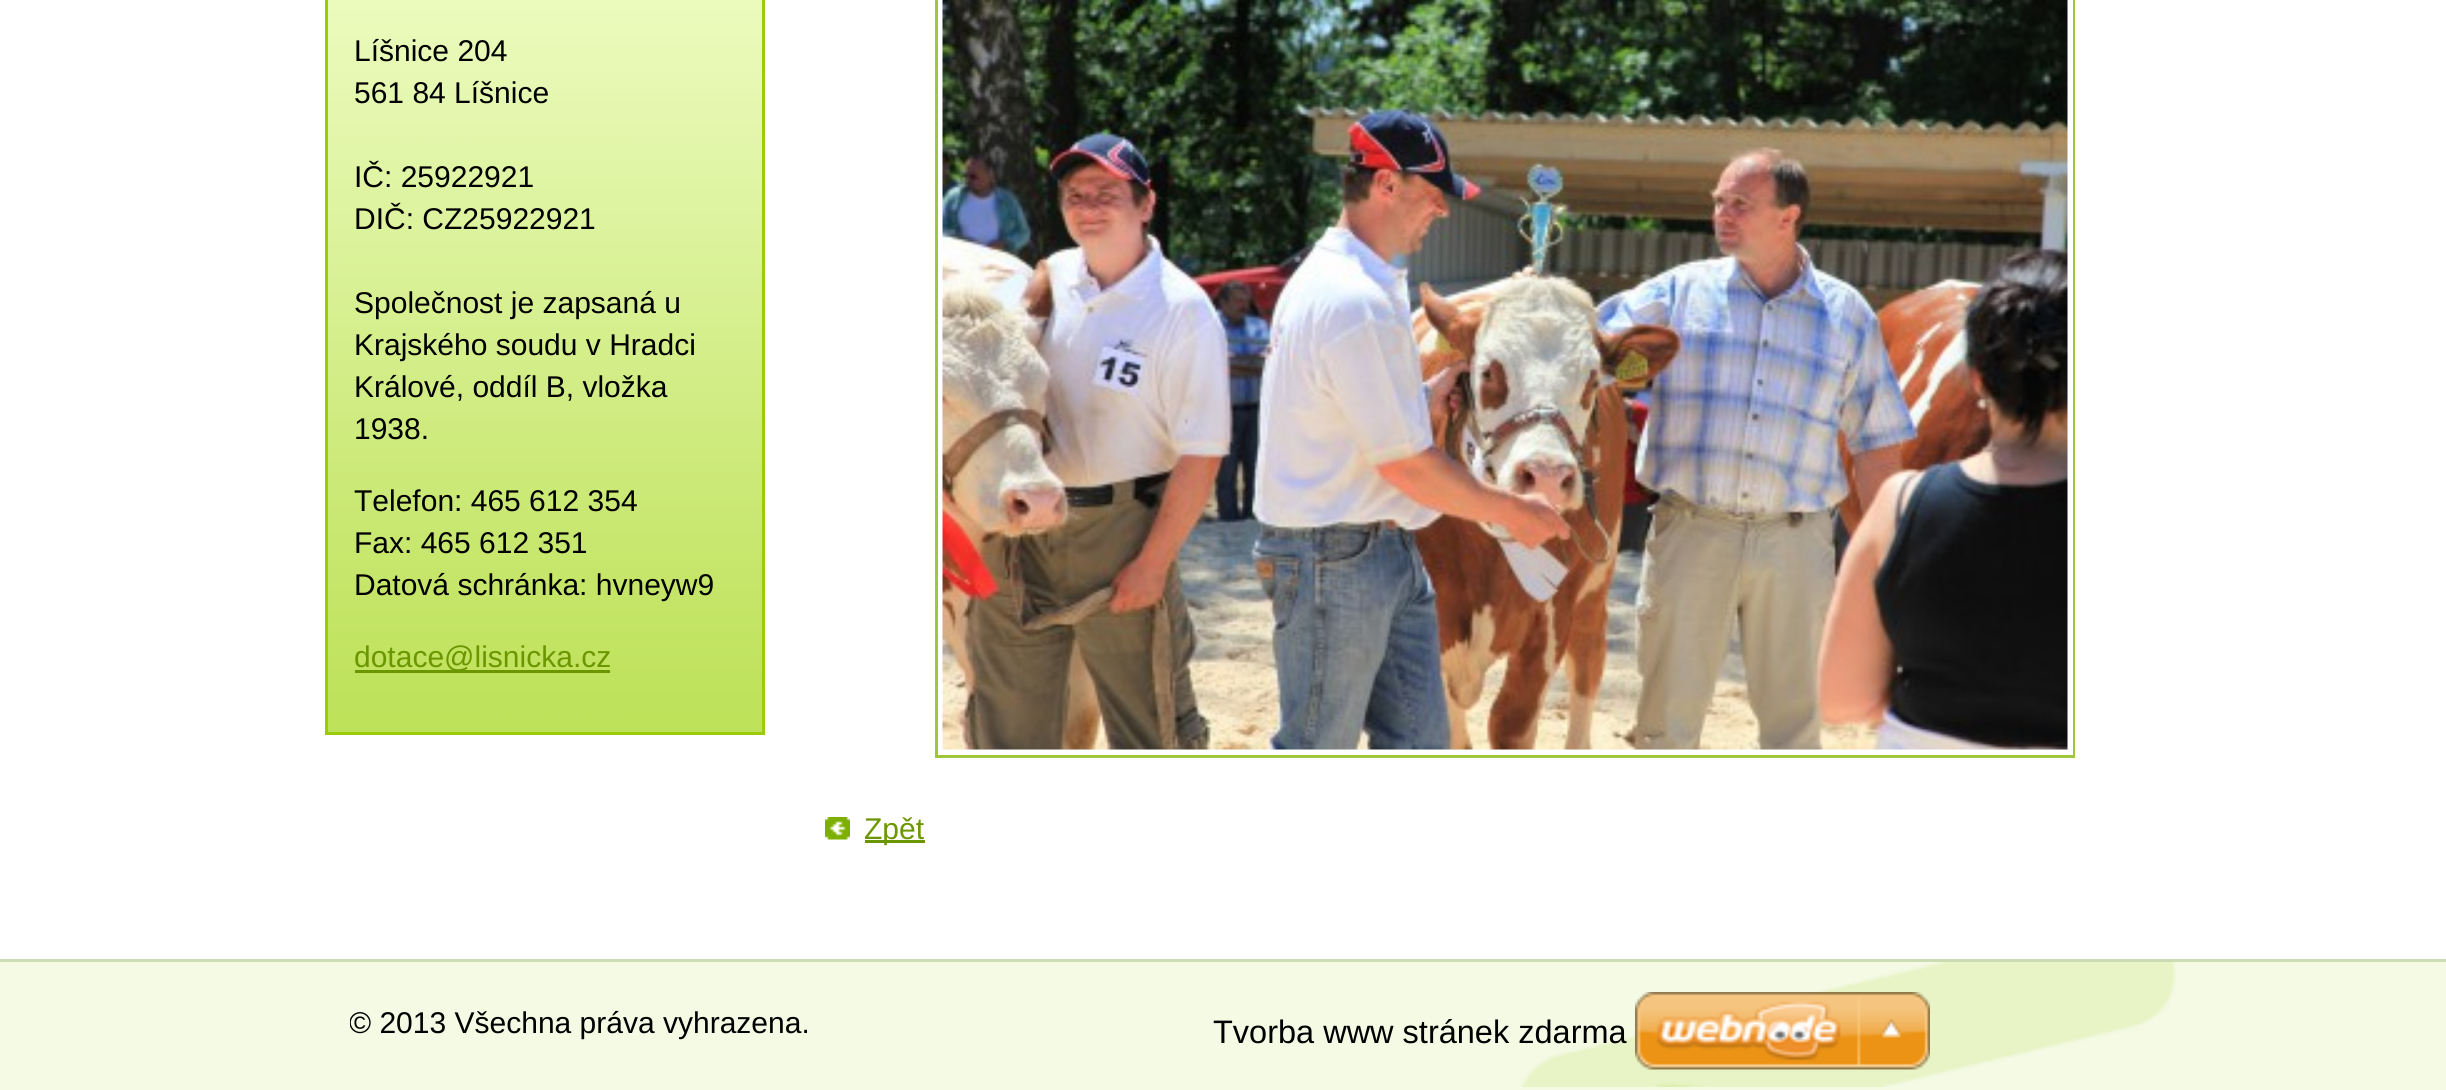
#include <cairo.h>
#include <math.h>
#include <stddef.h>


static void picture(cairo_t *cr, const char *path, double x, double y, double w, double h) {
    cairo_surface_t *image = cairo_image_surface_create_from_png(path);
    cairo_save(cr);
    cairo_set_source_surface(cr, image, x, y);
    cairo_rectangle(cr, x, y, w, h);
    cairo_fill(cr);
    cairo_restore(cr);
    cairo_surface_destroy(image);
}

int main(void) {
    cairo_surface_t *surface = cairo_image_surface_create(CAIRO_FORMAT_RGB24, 2446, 1090);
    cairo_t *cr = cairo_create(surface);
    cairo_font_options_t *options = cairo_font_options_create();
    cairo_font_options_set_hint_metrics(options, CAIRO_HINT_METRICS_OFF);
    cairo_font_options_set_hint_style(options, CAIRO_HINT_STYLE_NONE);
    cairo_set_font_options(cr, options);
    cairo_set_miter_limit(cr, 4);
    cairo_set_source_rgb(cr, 0.957, 0.98, 0.89);
    cairo_paint(cr);
    cairo_set_source_rgb(cr, 1, 1, 1);
    cairo_rectangle(cr, 0, 0, 2446, 959);
    cairo_fill(cr);
    picture(cr, "img1.png", 328, 0, 434, 732);
    cairo_rectangle(cr, 326.5, -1.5, 437, 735);
    cairo_set_source_rgb(cr, 0.608, 0.8, 0.043);
    cairo_set_line_width(cr, 3);
    cairo_stroke(cr);
    cairo_select_font_face(cr, "Liberation Sans", CAIRO_FONT_SLANT_NORMAL, CAIRO_FONT_WEIGHT_NORMAL);
    cairo_set_font_size(cr, 30);
    cairo_set_source_rgb(cr, 0, 0, 0);
    cairo_move_to(cr, 354, 61);
    cairo_show_text(cr, "Líšnice 204");
    cairo_move_to(cr, 354, 103);
    cairo_show_text(cr, "561 84 Líšnice");
    cairo_move_to(cr, 354, 187);
    cairo_show_text(cr, "IČ: 25922921");
    cairo_move_to(cr, 354, 229);
    cairo_show_text(cr, "DIČ: CZ25922921");
    cairo_move_to(cr, 354, 313);
    cairo_show_text(cr, "Společnost je zapsaná u");
    cairo_move_to(cr, 354, 355);
    cairo_show_text(cr, "Krajského soudu v Hradci");
    cairo_move_to(cr, 354, 397);
    cairo_show_text(cr, "Králové, oddíl B, vložka");
    cairo_move_to(cr, 354, 439);
    cairo_show_text(cr, "1938.");
    cairo_move_to(cr, 354, 511);
    cairo_show_text(cr, "Telefon: 465 612 354");
    cairo_move_to(cr, 354, 553);
    cairo_show_text(cr, "Fax: 465 612 351");
    cairo_move_to(cr, 354, 595);
    cairo_show_text(cr, "Datová schránka: hvneyw9");
    cairo_set_source_rgb(cr, 0.424, 0.588, 0);
    cairo_rectangle(cr, 355, 670, 255, 3);
    cairo_fill(cr);
    cairo_move_to(cr, 354, 667);
    cairo_show_text(cr, "dotace@lisnicka.cz");
    cairo_rectangle(cr, 936.5, -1.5, 1137, 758);
    cairo_set_source_rgb(cr, 0.627, 0.776, 0.235);
    cairo_stroke(cr);
    cairo_rectangle(cr, 940.5, -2.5, 1130, 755);
    cairo_set_source_rgb(cr, 1, 1, 1);
    cairo_set_line_width(cr, 5);
    cairo_stroke(cr);
    picture(cr, "img2.png", 942, 0, 1126, 750);
    picture(cr, "img3.png", 825, 817, 25, 23);
    cairo_set_source_rgb(cr, 0.424, 0.588, 0);
    cairo_rectangle(cr, 865, 840, 60, 3);
    cairo_fill(cr);
    cairo_move_to(cr, 864, 839);
    cairo_show_text(cr, "Zpět");
    cairo_set_source_rgb(cr, 0.804, 0.859, 0.702);
    cairo_rectangle(cr, 0, 959, 2446, 3);
    cairo_fill(cr);
    picture(cr, "img4.png", 1521, 962, 655, 125);
    cairo_save(cr);
    cairo_rectangle(cr, 350, 1005, 1175, 38);
    cairo_clip(cr);
    cairo_set_source_rgb(cr, 0, 0, 0);
    cairo_move_to(cr, 349, 1033);
    cairo_show_text(cr, "© 2013 Všechna práva vyhrazena.");
    cairo_restore(cr);
    cairo_set_font_size(cr, 32.5);
    cairo_set_source_rgb(cr, 0, 0, 0);
    cairo_move_to(cr, 1213, 1043);
    cairo_show_text(cr, "Tvorba www stránek zdarma");
    picture(cr, "img5.png", 1635, 992, 295, 78);
    cairo_surface_write_to_png(surface, "page.png");
    cairo_font_options_destroy(options);
    cairo_destroy(cr);
    cairo_surface_destroy(surface);
    return 0;
}
